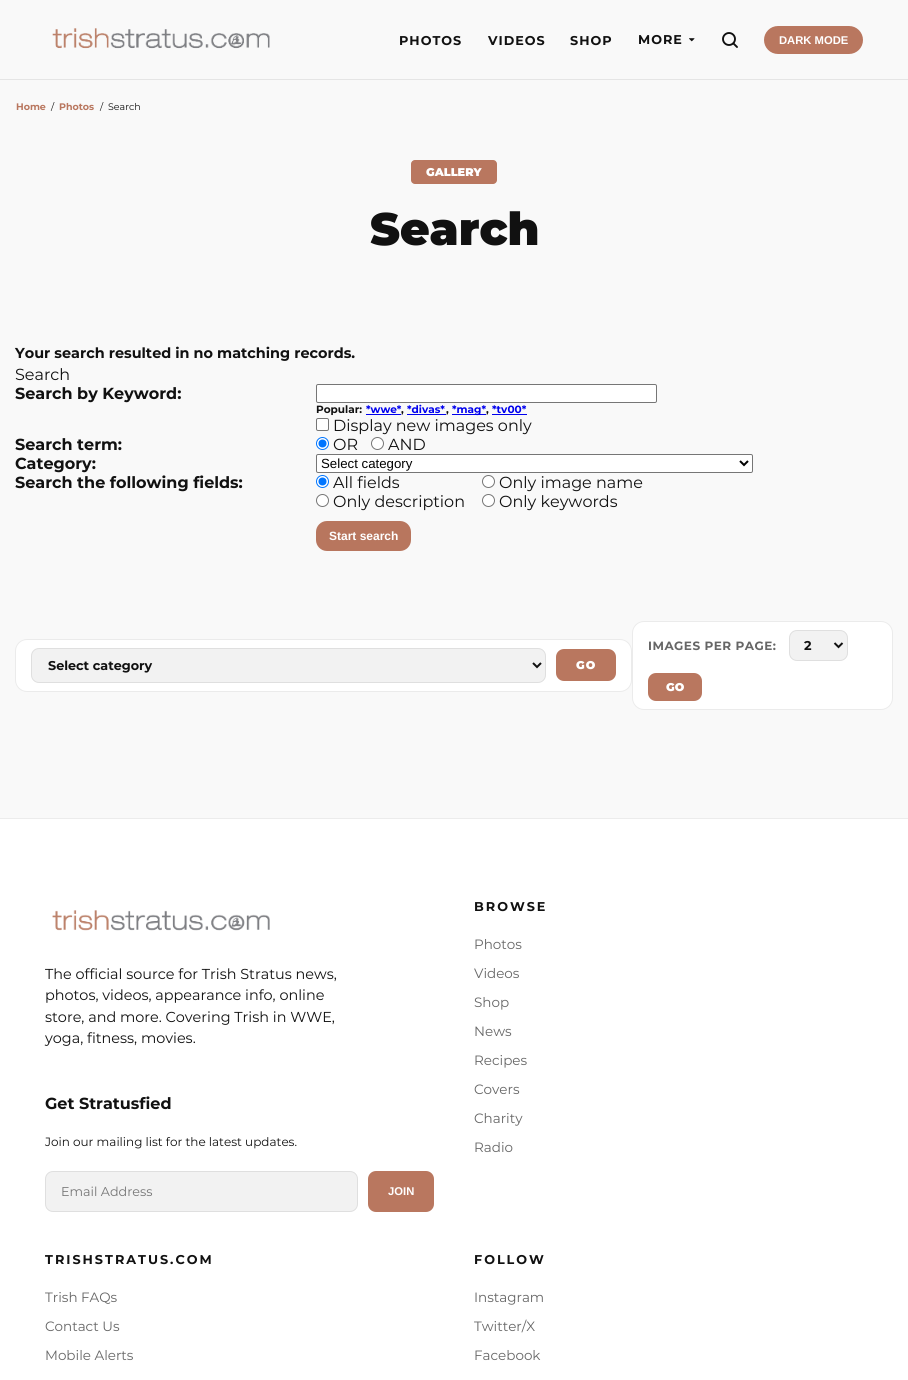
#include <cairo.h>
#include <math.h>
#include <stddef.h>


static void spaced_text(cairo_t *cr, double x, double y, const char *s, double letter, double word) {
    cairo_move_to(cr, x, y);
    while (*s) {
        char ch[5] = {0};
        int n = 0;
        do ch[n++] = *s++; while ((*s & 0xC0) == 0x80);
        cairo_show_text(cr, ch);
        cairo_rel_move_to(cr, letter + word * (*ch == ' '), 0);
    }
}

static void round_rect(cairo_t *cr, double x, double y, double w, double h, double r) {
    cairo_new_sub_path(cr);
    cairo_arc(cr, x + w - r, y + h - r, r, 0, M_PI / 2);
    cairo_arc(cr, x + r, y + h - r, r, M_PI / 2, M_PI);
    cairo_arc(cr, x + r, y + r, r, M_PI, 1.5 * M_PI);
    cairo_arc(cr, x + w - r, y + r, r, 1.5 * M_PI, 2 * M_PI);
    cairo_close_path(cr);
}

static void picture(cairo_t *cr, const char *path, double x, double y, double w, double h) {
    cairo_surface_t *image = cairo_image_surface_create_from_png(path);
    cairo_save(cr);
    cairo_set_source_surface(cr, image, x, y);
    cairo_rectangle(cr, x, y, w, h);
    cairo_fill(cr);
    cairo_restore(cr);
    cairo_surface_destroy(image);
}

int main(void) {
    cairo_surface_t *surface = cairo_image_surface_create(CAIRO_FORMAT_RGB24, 908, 1380);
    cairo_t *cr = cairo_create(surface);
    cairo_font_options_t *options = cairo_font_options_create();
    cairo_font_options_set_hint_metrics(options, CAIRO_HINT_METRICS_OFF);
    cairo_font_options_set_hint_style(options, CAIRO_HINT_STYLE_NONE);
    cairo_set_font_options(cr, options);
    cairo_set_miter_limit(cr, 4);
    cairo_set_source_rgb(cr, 0.976, 0.976, 0.976);
    cairo_paint(cr);
    cairo_set_source_rgb(cr, 0.898, 0.898, 0.898);
    cairo_rectangle(cr, 0, 79, 908, 1);
    cairo_fill(cr);
    picture(cr, "img1.png", 52, 28, 218, 21);
    cairo_select_font_face(cr, "Montserrat", CAIRO_FONT_SLANT_NORMAL, CAIRO_FONT_WEIGHT_BOLD);
    cairo_set_font_size(cr, 12.75);
    cairo_set_source_rgb(cr, 0.067, 0.067, 0.067);
    spaced_text(cr, 399, 45, "PHOTOS", 1, 0);
    spaced_text(cr, 488, 45, "VIDEOS", 1, 0);
    spaced_text(cr, 570, 45, "SHOP", 1, 0);
    spaced_text(cr, 638, 44, "MORE", 1, 0);
    picture(cr, "img2.png", 689, 38, 6, 4);
    cairo_arc(cr, 729, 39, 6, 0, 2 * M_PI);
    cairo_set_line_width(cr, 1.9);
    cairo_stroke(cr);
    cairo_new_path(cr);
    cairo_move_to(cr, 737, 47);
    cairo_line_to(cr, 733.5, 43.5);
    cairo_set_line_cap(cr, CAIRO_LINE_CAP_ROUND);
    cairo_set_line_join(cr, CAIRO_LINE_JOIN_ROUND);
    cairo_stroke(cr);
    cairo_set_source_rgb(cr, 0.725, 0.467, 0.373);
    round_rect(cr, 764, 26, 99, 28, 14);
    cairo_fill(cr);
    cairo_select_font_face(cr, "Liberation Sans", CAIRO_FONT_SLANT_NORMAL, CAIRO_FONT_WEIGHT_BOLD);
    cairo_set_font_size(cr, 11.25);
    cairo_set_source_rgb(cr, 1, 1, 1);
    cairo_move_to(cr, 779, 44);
    cairo_show_text(cr, "DARK MODE");
    cairo_select_font_face(cr, "Montserrat", CAIRO_FONT_SLANT_NORMAL, CAIRO_FONT_WEIGHT_BOLD);
    cairo_set_font_size(cr, 9.5);
    cairo_set_source_rgb(cr, 0.725, 0.467, 0.373);
    cairo_move_to(cr, 16, 110);
    cairo_show_text(cr, "Home");
    cairo_select_font_face(cr, "Montserrat", CAIRO_FONT_SLANT_NORMAL, CAIRO_FONT_WEIGHT_NORMAL);
    cairo_set_source_rgb(cr, 0.067, 0.067, 0.067);
    cairo_move_to(cr, 51, 110);
    cairo_show_text(cr, "/");
    cairo_select_font_face(cr, "Montserrat", CAIRO_FONT_SLANT_NORMAL, CAIRO_FONT_WEIGHT_BOLD);
    cairo_set_source_rgb(cr, 0.725, 0.467, 0.373);
    cairo_move_to(cr, 59, 110);
    cairo_show_text(cr, "Photos");
    cairo_select_font_face(cr, "Montserrat", CAIRO_FONT_SLANT_NORMAL, CAIRO_FONT_WEIGHT_NORMAL);
    cairo_set_source_rgb(cr, 0.067, 0.067, 0.067);
    cairo_move_to(cr, 100, 110);
    cairo_show_text(cr, "/");
    cairo_move_to(cr, 108, 110);
    cairo_show_text(cr, "Search");
    cairo_set_source_rgb(cr, 0.725, 0.467, 0.373);
    round_rect(cr, 411, 160, 86, 24, 4);
    cairo_fill(cr);
    cairo_select_font_face(cr, "Montserrat Black", CAIRO_FONT_SLANT_NORMAL, CAIRO_FONT_WEIGHT_NORMAL);
    cairo_set_font_size(cr, 11.25);
    cairo_set_source_rgb(cr, 1, 1, 1);
    cairo_move_to(cr, 426, 176);
    cairo_show_text(cr, "GALLERY");
    cairo_set_font_size(cr, 45.5);
    cairo_set_source_rgb(cr, 0.067, 0.067, 0.067);
    cairo_move_to(cr, 370, 245);
    cairo_show_text(cr, "Search");
    cairo_select_font_face(cr, "Montserrat", CAIRO_FONT_SLANT_NORMAL, CAIRO_FONT_WEIGHT_BOLD);
    cairo_set_font_size(cr, 14.4);
    cairo_move_to(cr, 15, 358);
    cairo_show_text(cr, "Your search resulted in no matching records.");
    cairo_select_font_face(cr, "Montserrat", CAIRO_FONT_SLANT_NORMAL, CAIRO_FONT_WEIGHT_NORMAL);
    cairo_set_font_size(cr, 16);
    cairo_move_to(cr, 15, 380);
    cairo_show_text(cr, "Search");
    cairo_select_font_face(cr, "Montserrat", CAIRO_FONT_SLANT_NORMAL, CAIRO_FONT_WEIGHT_BOLD);
    cairo_move_to(cr, 15, 399);
    cairo_show_text(cr, "Search by Keyword:");
    cairo_set_source_rgb(cr, 1, 1, 1);
    round_rect(cr, 316.5, 384.5, 340, 18, 1.5);
    cairo_fill_preserve(cr);
    cairo_set_source_rgb(cr, 0.463, 0.463, 0.463);
    cairo_set_line_width(cr, 1);
    cairo_set_line_cap(cr, CAIRO_LINE_CAP_BUTT);
    cairo_set_line_join(cr, CAIRO_LINE_JOIN_MITER);
    cairo_stroke(cr);
    cairo_set_font_size(cr, 10.5);
    cairo_set_source_rgb(cr, 0.067, 0.067, 0.067);
    cairo_move_to(cr, 316, 413);
    cairo_show_text(cr, "Popular:");
    cairo_set_source_rgb(cr, 0, 0, 0.933);
    cairo_move_to(cr, 366, 413);
    cairo_show_text(cr, "*wwe*");
    cairo_set_source_rgb(cr, 0.067, 0.067, 0.067);
    cairo_move_to(cr, 401, 413);
    cairo_show_text(cr, ",");
    cairo_set_source_rgb(cr, 0, 0, 0.933);
    cairo_rectangle(cr, 366, 414, 35, 1);
    cairo_fill(cr);
    cairo_move_to(cr, 407, 413);
    cairo_show_text(cr, "*divas*");
    cairo_set_source_rgb(cr, 0.067, 0.067, 0.067);
    cairo_move_to(cr, 446, 413);
    cairo_show_text(cr, ",");
    cairo_set_source_rgb(cr, 0, 0, 0.933);
    cairo_rectangle(cr, 407, 414, 39, 1);
    cairo_fill(cr);
    cairo_rectangle(cr, 452, 414, 34, 1);
    cairo_fill(cr);
    cairo_move_to(cr, 452, 413);
    cairo_show_text(cr, "*mag*");
    cairo_set_source_rgb(cr, 0.067, 0.067, 0.067);
    cairo_move_to(cr, 486, 413);
    cairo_show_text(cr, ",");
    cairo_set_source_rgb(cr, 0, 0, 0.933);
    cairo_rectangle(cr, 492, 414, 35, 1);
    cairo_fill(cr);
    cairo_move_to(cr, 492, 413);
    cairo_show_text(cr, "*tv00*");
    cairo_set_source_rgb(cr, 1, 1, 1);
    round_rect(cr, 316.5, 418.5, 12, 12, 1.5);
    cairo_fill_preserve(cr);
    cairo_set_source_rgb(cr, 0.463, 0.463, 0.463);
    cairo_stroke(cr);
    cairo_select_font_face(cr, "Montserrat", CAIRO_FONT_SLANT_NORMAL, CAIRO_FONT_WEIGHT_NORMAL);
    cairo_set_font_size(cr, 16);
    cairo_set_source_rgb(cr, 0.067, 0.067, 0.067);
    cairo_move_to(cr, 333, 431);
    cairo_show_text(cr, "Display new images only");
    cairo_select_font_face(cr, "Montserrat", CAIRO_FONT_SLANT_NORMAL, CAIRO_FONT_WEIGHT_BOLD);
    cairo_move_to(cr, 15, 450);
    cairo_show_text(cr, "Search term:");
    cairo_set_source_rgb(cr, 1, 1, 1);
    cairo_new_path(cr);
    cairo_arc(cr, 322.5, 443.5, 6, 0, 2 * M_PI);
    cairo_fill_preserve(cr);
    cairo_set_source_rgb(cr, 0, 0.459, 1);
    cairo_stroke(cr);
    cairo_arc(cr, 322.5, 443.5, 4, 0, 2 * M_PI);
    cairo_fill(cr);
    cairo_select_font_face(cr, "Montserrat", CAIRO_FONT_SLANT_NORMAL, CAIRO_FONT_WEIGHT_NORMAL);
    cairo_set_source_rgb(cr, 0.067, 0.067, 0.067);
    cairo_move_to(cr, 333, 450);
    cairo_show_text(cr, "OR");
    cairo_set_source_rgb(cr, 1, 1, 1);
    cairo_new_path(cr);
    cairo_arc(cr, 377.5, 443.5, 6, 0, 2 * M_PI);
    cairo_fill_preserve(cr);
    cairo_set_source_rgb(cr, 0.463, 0.463, 0.463);
    cairo_stroke(cr);
    cairo_set_source_rgb(cr, 0.067, 0.067, 0.067);
    cairo_move_to(cr, 388, 450);
    cairo_show_text(cr, "AND");
    cairo_select_font_face(cr, "Montserrat", CAIRO_FONT_SLANT_NORMAL, CAIRO_FONT_WEIGHT_BOLD);
    cairo_move_to(cr, 15, 469);
    cairo_show_text(cr, "Category:");
    cairo_set_source_rgb(cr, 1, 1, 1);
    round_rect(cr, 316.5, 454.5, 436, 18, 1.5);
    cairo_fill_preserve(cr);
    cairo_set_source_rgb(cr, 0.463, 0.463, 0.463);
    cairo_stroke(cr);
    cairo_new_path(cr);
    cairo_move_to(cr, 740, 461);
    cairo_line_to(cr, 744, 465);
    cairo_line_to(cr, 748, 461);
    cairo_set_source_rgb(cr, 0, 0, 0);
    cairo_set_line_width(cr, 2);
    cairo_stroke(cr);
    cairo_select_font_face(cr, "Liberation Sans", CAIRO_FONT_SLANT_NORMAL, CAIRO_FONT_WEIGHT_NORMAL);
    cairo_set_font_size(cr, 13.25);
    cairo_move_to(cr, 321, 468);
    cairo_show_text(cr, "Select category");
    cairo_select_font_face(cr, "Montserrat", CAIRO_FONT_SLANT_NORMAL, CAIRO_FONT_WEIGHT_BOLD);
    cairo_set_font_size(cr, 16);
    cairo_set_source_rgb(cr, 0.067, 0.067, 0.067);
    cairo_move_to(cr, 15, 488);
    cairo_show_text(cr, "Search the following fields:");
    cairo_set_source_rgb(cr, 1, 1, 1);
    cairo_new_path(cr);
    cairo_arc(cr, 322.5, 481.5, 6, 0, 2 * M_PI);
    cairo_fill_preserve(cr);
    cairo_set_source_rgb(cr, 0, 0.459, 1);
    cairo_set_line_width(cr, 1);
    cairo_stroke(cr);
    cairo_arc(cr, 322.5, 481.5, 4, 0, 2 * M_PI);
    cairo_fill(cr);
    cairo_select_font_face(cr, "Montserrat", CAIRO_FONT_SLANT_NORMAL, CAIRO_FONT_WEIGHT_NORMAL);
    cairo_set_source_rgb(cr, 0.067, 0.067, 0.067);
    cairo_move_to(cr, 333, 488);
    cairo_show_text(cr, "All fields");
    cairo_set_source_rgb(cr, 1, 1, 1);
    cairo_new_path(cr);
    cairo_arc(cr, 488.5, 481.5, 6, 0, 2 * M_PI);
    cairo_fill_preserve(cr);
    cairo_set_source_rgb(cr, 0.463, 0.463, 0.463);
    cairo_stroke(cr);
    cairo_set_source_rgb(cr, 0.067, 0.067, 0.067);
    cairo_move_to(cr, 499, 488);
    cairo_show_text(cr, "Only image name");
    cairo_set_source_rgb(cr, 1, 1, 1);
    cairo_new_path(cr);
    cairo_arc(cr, 322.5, 500.5, 6, 0, 2 * M_PI);
    cairo_fill_preserve(cr);
    cairo_set_source_rgb(cr, 0.463, 0.463, 0.463);
    cairo_stroke(cr);
    cairo_set_source_rgb(cr, 0.067, 0.067, 0.067);
    cairo_move_to(cr, 333, 507);
    cairo_show_text(cr, "Only description");
    cairo_set_source_rgb(cr, 1, 1, 1);
    cairo_new_path(cr);
    cairo_arc(cr, 488.5, 500.5, 6, 0, 2 * M_PI);
    cairo_fill_preserve(cr);
    cairo_set_source_rgb(cr, 0.463, 0.463, 0.463);
    cairo_stroke(cr);
    cairo_set_source_rgb(cr, 0.067, 0.067, 0.067);
    cairo_move_to(cr, 499, 507);
    cairo_show_text(cr, "Only keywords");
    cairo_set_source_rgb(cr, 0.722, 0.463, 0.369);
    round_rect(cr, 316, 521, 95, 30, 11);
    cairo_fill(cr);
    cairo_select_font_face(cr, "Liberation Sans", CAIRO_FONT_SLANT_NORMAL, CAIRO_FONT_WEIGHT_BOLD);
    cairo_set_font_size(cr, 12);
    cairo_set_source_rgb(cr, 1, 1, 1);
    cairo_move_to(cr, 329, 540);
    cairo_show_text(cr, "Start search");
    round_rect(cr, 15, 639, 617, 53, 12);
    cairo_fill(cr);
    round_rect(cr, 15.5, 639.5, 616, 52, 11.5);
    cairo_set_source_rgba(cr, 0, 0, 0, 0.08);
    cairo_stroke(cr);
    cairo_set_source_rgb(cr, 0.949, 0.949, 0.949);
    round_rect(cr, 31, 648, 515, 35, 8);
    cairo_fill(cr);
    round_rect(cr, 31.5, 648.5, 514, 34, 7.5);
    cairo_set_source_rgba(cr, 0, 0, 0, 0.08);
    cairo_stroke(cr);
    cairo_new_path(cr);
    cairo_move_to(cr, 533, 663);
    cairo_line_to(cr, 537, 667);
    cairo_line_to(cr, 541, 663);
    cairo_set_source_rgb(cr, 0.067, 0.067, 0.067);
    cairo_set_line_width(cr, 2);
    cairo_stroke(cr);
    cairo_select_font_face(cr, "Montserrat", CAIRO_FONT_SLANT_NORMAL, CAIRO_FONT_WEIGHT_BOLD);
    cairo_set_font_size(cr, 12.75);
    cairo_move_to(cr, 48, 670);
    cairo_show_text(cr, "Select category");
    cairo_set_source_rgb(cr, 0.725, 0.467, 0.373);
    round_rect(cr, 556, 649, 60, 32, 8);
    cairo_fill(cr);
    cairo_select_font_face(cr, "Montserrat Black", CAIRO_FONT_SLANT_NORMAL, CAIRO_FONT_WEIGHT_NORMAL);
    cairo_set_font_size(cr, 11.25);
    cairo_set_source_rgb(cr, 1, 1, 1);
    spaced_text(cr, 576, 669, "GO", 1, 0);
    round_rect(cr, 632, 621, 261, 89, 12);
    cairo_fill(cr);
    round_rect(cr, 632.5, 621.5, 260, 88, 11.5);
    cairo_set_source_rgba(cr, 0, 0, 0, 0.08);
    cairo_set_line_width(cr, 1);
    cairo_stroke(cr);
    cairo_select_font_face(cr, "Montserrat", CAIRO_FONT_SLANT_NORMAL, CAIRO_FONT_WEIGHT_BOLD);
    cairo_set_font_size(cr, 12);
    cairo_set_source_rgb(cr, 0.4, 0.4, 0.4);
    spaced_text(cr, 648, 650, "IMAGES PER PAGE:", 0.5, 0);
    cairo_set_source_rgb(cr, 0.949, 0.949, 0.949);
    round_rect(cr, 789, 630, 59, 31, 8);
    cairo_fill(cr);
    round_rect(cr, 789.5, 630.5, 58, 30, 7.5);
    cairo_set_source_rgba(cr, 0, 0, 0, 0.08);
    cairo_stroke(cr);
    cairo_new_path(cr);
    cairo_move_to(cr, 834.5, 643);
    cairo_line_to(cr, 838.5, 647);
    cairo_line_to(cr, 842.5, 643);
    cairo_set_source_rgb(cr, 0.067, 0.067, 0.067);
    cairo_set_line_width(cr, 2);
    cairo_stroke(cr);
    cairo_set_font_size(cr, 12.75);
    cairo_move_to(cr, 804, 650);
    cairo_show_text(cr, "2");
    cairo_set_source_rgb(cr, 0.725, 0.467, 0.373);
    round_rect(cr, 648, 673, 54, 28, 8);
    cairo_fill(cr);
    cairo_select_font_face(cr, "Montserrat Black", CAIRO_FONT_SLANT_NORMAL, CAIRO_FONT_WEIGHT_NORMAL);
    cairo_set_font_size(cr, 11.25);
    cairo_set_source_rgb(cr, 1, 1, 1);
    cairo_move_to(cr, 666, 691);
    cairo_show_text(cr, "GO");
    cairo_rectangle(cr, 0, 819, 908, 561);
    cairo_fill(cr);
    cairo_set_source_rgb(cr, 0.922, 0.922, 0.922);
    cairo_rectangle(cr, 0, 818, 908, 1);
    cairo_fill(cr);
    picture(cr, "img3.png", 52, 910, 218, 21);
    cairo_select_font_face(cr, "Montserrat", CAIRO_FONT_SLANT_NORMAL, CAIRO_FONT_WEIGHT_NORMAL);
    cairo_set_font_size(cr, 14.4);
    cairo_set_source_rgb(cr, 0.067, 0.067, 0.067);
    cairo_move_to(cr, 45, 979);
    cairo_show_text(cr, "The official source for Trish Stratus news,");
    cairo_move_to(cr, 45, 1000);
    cairo_show_text(cr, "photos, videos, appearance info, online");
    cairo_move_to(cr, 45, 1022);
    cairo_show_text(cr, "store, and more. Covering Trish in WWE,");
    cairo_move_to(cr, 45, 1043);
    cairo_show_text(cr, "yoga, fitness, movies.");
    cairo_select_font_face(cr, "Montserrat", CAIRO_FONT_SLANT_NORMAL, CAIRO_FONT_WEIGHT_BOLD);
    cairo_set_font_size(cr, 16);
    cairo_move_to(cr, 45, 1109);
    cairo_show_text(cr, "Get Stratusfied");
    cairo_select_font_face(cr, "Montserrat", CAIRO_FONT_SLANT_NORMAL, CAIRO_FONT_WEIGHT_NORMAL);
    cairo_set_font_size(cr, 12);
    cairo_move_to(cr, 45, 1146);
    cairo_show_text(cr, "Join our mailing list for the latest updates.");
    cairo_set_source_rgb(cr, 0.949, 0.949, 0.949);
    round_rect(cr, 45, 1171, 313, 41, 8);
    cairo_fill(cr);
    round_rect(cr, 45.5, 1171.5, 312, 40, 7.5);
    cairo_set_source_rgba(cr, 0, 0, 0, 0.08);
    cairo_set_line_width(cr, 1);
    cairo_stroke(cr);
    cairo_set_font_size(cr, 12.75);
    cairo_set_source_rgb(cr, 0.459, 0.459, 0.459);
    cairo_move_to(cr, 61, 1196);
    cairo_show_text(cr, "Email Address");
    cairo_set_source_rgb(cr, 0.725, 0.467, 0.373);
    round_rect(cr, 368, 1171, 66, 41, 8);
    cairo_fill(cr);
    cairo_select_font_face(cr, "Liberation Sans", CAIRO_FONT_SLANT_NORMAL, CAIRO_FONT_WEIGHT_BOLD);
    cairo_set_font_size(cr, 11.25);
    cairo_set_source_rgb(cr, 1, 1, 1);
    cairo_move_to(cr, 388, 1195);
    cairo_show_text(cr, "JOIN");
    cairo_select_font_face(cr, "Montserrat", CAIRO_FONT_SLANT_NORMAL, CAIRO_FONT_WEIGHT_BOLD);
    cairo_set_font_size(cr, 12.75);
    cairo_set_source_rgb(cr, 0.067, 0.067, 0.067);
    spaced_text(cr, 474, 911, "BROWSE", 2, 0);
    cairo_select_font_face(cr, "Montserrat", CAIRO_FONT_SLANT_NORMAL, CAIRO_FONT_WEIGHT_NORMAL);
    cairo_set_font_size(cr, 13.5);
    cairo_set_source_rgb(cr, 0.4, 0.4, 0.4);
    cairo_move_to(cr, 474, 949);
    cairo_show_text(cr, "Photos");
    cairo_move_to(cr, 474, 978);
    cairo_show_text(cr, "Videos");
    cairo_move_to(cr, 474, 1007);
    cairo_show_text(cr, "Shop");
    cairo_move_to(cr, 474, 1036);
    cairo_show_text(cr, "News");
    cairo_move_to(cr, 474, 1065);
    cairo_show_text(cr, "Recipes");
    cairo_move_to(cr, 474, 1094);
    cairo_show_text(cr, "Covers");
    cairo_move_to(cr, 474, 1123);
    cairo_show_text(cr, "Charity");
    cairo_move_to(cr, 474, 1152);
    cairo_show_text(cr, "Radio");
    cairo_select_font_face(cr, "Montserrat", CAIRO_FONT_SLANT_NORMAL, CAIRO_FONT_WEIGHT_BOLD);
    cairo_set_font_size(cr, 12.75);
    cairo_set_source_rgb(cr, 0.067, 0.067, 0.067);
    spaced_text(cr, 45, 1264, "TRISHSTRATUS.COM", 2, 0);
    cairo_select_font_face(cr, "Montserrat", CAIRO_FONT_SLANT_NORMAL, CAIRO_FONT_WEIGHT_NORMAL);
    cairo_set_font_size(cr, 13.5);
    cairo_set_source_rgb(cr, 0.4, 0.4, 0.4);
    cairo_move_to(cr, 45, 1302);
    cairo_show_text(cr, "Trish FAQs");
    cairo_move_to(cr, 45, 1331);
    cairo_show_text(cr, "Contact Us");
    cairo_move_to(cr, 45, 1360);
    cairo_show_text(cr, "Mobile Alerts");
    cairo_select_font_face(cr, "Montserrat", CAIRO_FONT_SLANT_NORMAL, CAIRO_FONT_WEIGHT_BOLD);
    cairo_set_font_size(cr, 12.75);
    cairo_set_source_rgb(cr, 0.067, 0.067, 0.067);
    spaced_text(cr, 474, 1264, "FOLLOW", 2, 0);
    cairo_select_font_face(cr, "Montserrat", CAIRO_FONT_SLANT_NORMAL, CAIRO_FONT_WEIGHT_NORMAL);
    cairo_set_font_size(cr, 13.5);
    cairo_set_source_rgb(cr, 0.4, 0.4, 0.4);
    cairo_move_to(cr, 474, 1302);
    cairo_show_text(cr, "Instagram");
    cairo_move_to(cr, 474, 1331);
    cairo_show_text(cr, "Twitter/X");
    cairo_move_to(cr, 474, 1360);
    cairo_show_text(cr, "Facebook");
    cairo_surface_write_to_png(surface, "page.png");
    cairo_font_options_destroy(options);
    cairo_destroy(cr);
    cairo_surface_destroy(surface);
    return 0;
}
